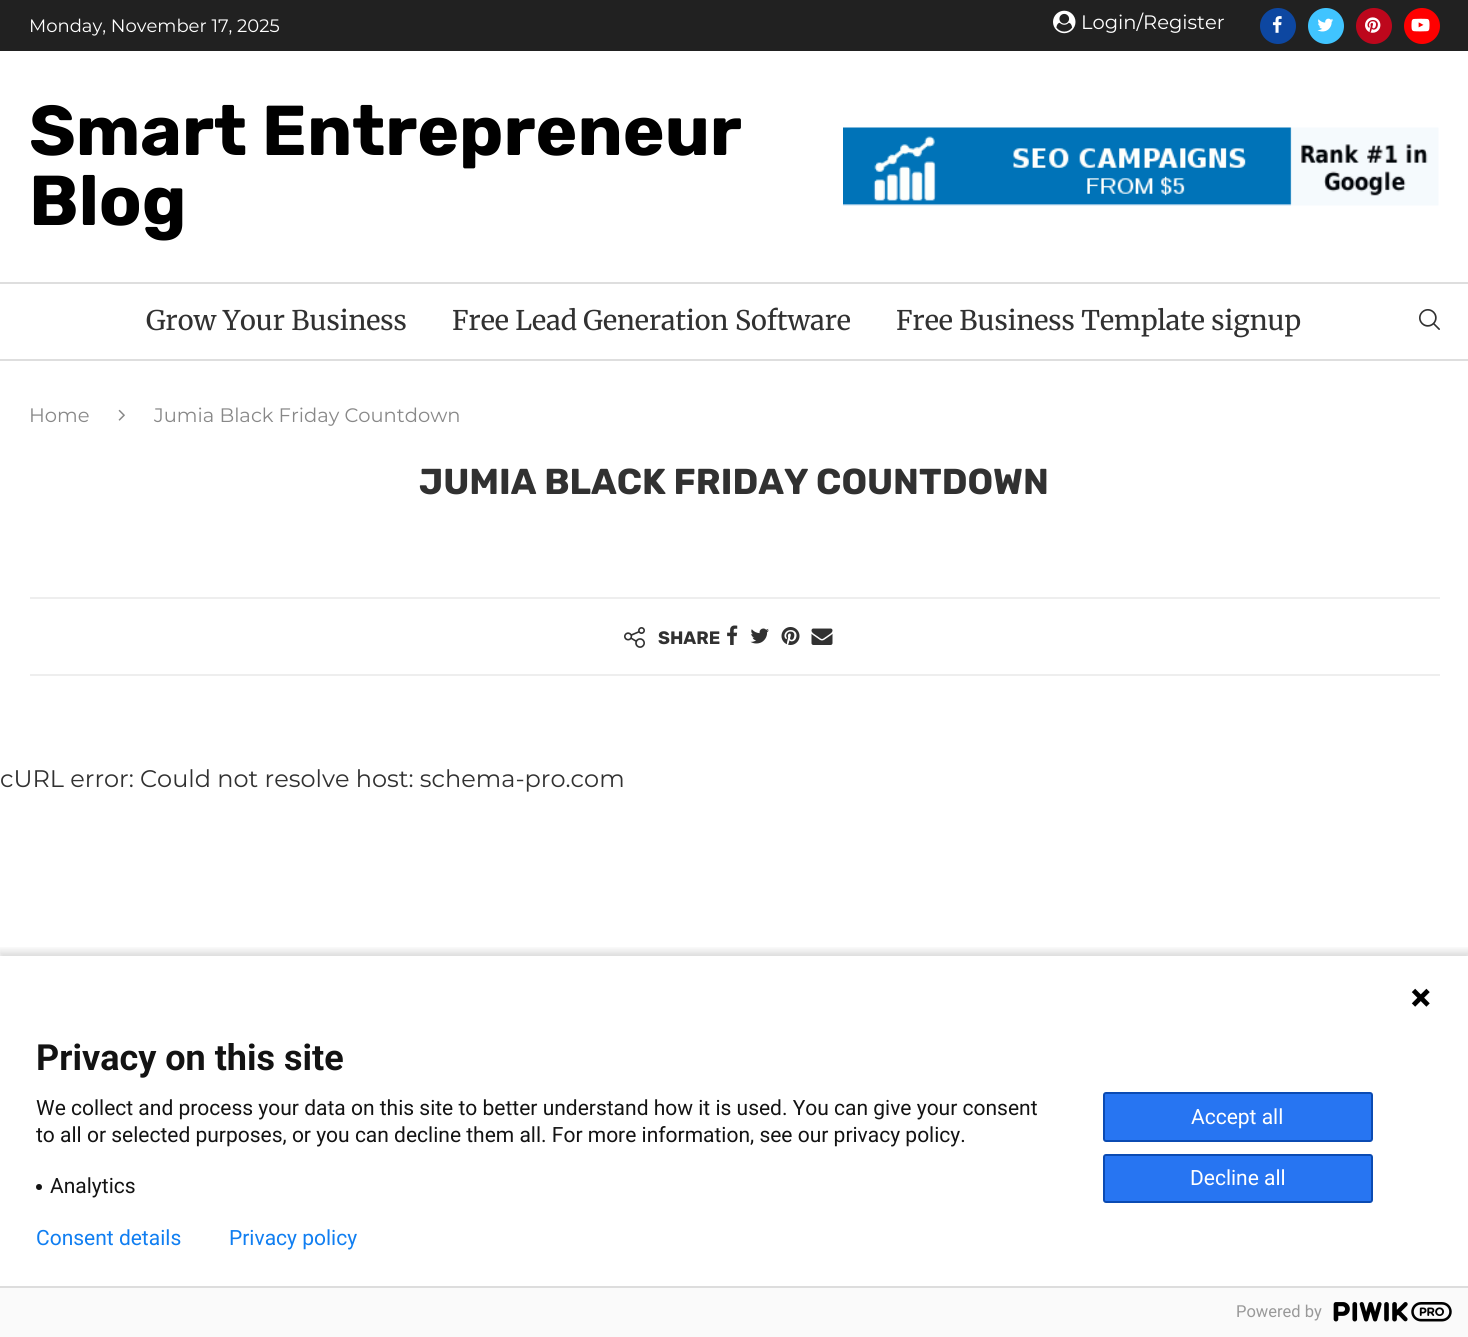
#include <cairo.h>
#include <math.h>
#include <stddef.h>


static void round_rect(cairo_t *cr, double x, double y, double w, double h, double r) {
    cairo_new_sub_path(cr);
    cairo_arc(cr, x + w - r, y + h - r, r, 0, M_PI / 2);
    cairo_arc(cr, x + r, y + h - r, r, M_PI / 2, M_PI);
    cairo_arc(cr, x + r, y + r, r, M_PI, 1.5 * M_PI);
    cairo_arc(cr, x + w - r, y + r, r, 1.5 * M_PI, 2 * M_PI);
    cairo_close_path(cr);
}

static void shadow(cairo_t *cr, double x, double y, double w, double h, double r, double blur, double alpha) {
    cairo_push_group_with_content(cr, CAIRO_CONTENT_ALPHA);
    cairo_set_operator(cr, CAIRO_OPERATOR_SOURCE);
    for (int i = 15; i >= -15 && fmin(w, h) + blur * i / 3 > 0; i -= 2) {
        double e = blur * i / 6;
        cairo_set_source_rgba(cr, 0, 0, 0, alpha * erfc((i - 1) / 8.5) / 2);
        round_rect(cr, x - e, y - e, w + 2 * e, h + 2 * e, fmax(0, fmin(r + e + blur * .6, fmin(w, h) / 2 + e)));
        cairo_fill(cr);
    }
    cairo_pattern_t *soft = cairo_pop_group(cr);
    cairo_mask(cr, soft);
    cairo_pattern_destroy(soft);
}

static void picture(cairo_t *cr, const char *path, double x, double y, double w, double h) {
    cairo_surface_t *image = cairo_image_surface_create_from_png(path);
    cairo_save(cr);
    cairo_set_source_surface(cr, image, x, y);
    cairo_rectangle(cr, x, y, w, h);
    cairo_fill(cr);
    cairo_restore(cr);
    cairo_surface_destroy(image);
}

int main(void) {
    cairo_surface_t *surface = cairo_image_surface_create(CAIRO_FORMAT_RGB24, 1468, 1337);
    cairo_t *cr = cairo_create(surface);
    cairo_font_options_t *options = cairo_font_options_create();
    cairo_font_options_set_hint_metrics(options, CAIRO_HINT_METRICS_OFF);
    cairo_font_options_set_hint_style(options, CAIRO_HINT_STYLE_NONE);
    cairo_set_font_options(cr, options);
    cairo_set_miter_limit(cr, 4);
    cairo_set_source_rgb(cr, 1, 1, 1);
    cairo_paint(cr);
    cairo_set_source_rgb(cr, 0.129, 0.129, 0.129);
    cairo_rectangle(cr, 0, 0, 1468, 51);
    cairo_fill(cr);
    cairo_select_font_face(cr, "Montserrat", CAIRO_FONT_SLANT_NORMAL, CAIRO_FONT_WEIGHT_NORMAL);
    cairo_set_font_size(cr, 18);
    cairo_set_source_rgb(cr, 1, 1, 1);
    cairo_move_to(cr, 29, 32);
    cairo_show_text(cr, "Monday, November 17, 2025");
    picture(cr, "img1.png", 1053, 10, 23, 24);
    cairo_set_font_size(cr, 19.5);
    cairo_move_to(cr, 1081, 29);
    cairo_show_text(cr, "Login/Register");
    cairo_set_source_rgb(cr, 0.051, 0.278, 0.631);
    cairo_new_path(cr);
    cairo_arc(cr, 1278, 26, 18, 0, 2 * M_PI);
    cairo_fill(cr);
    picture(cr, "img2.png", 1272, 16, 10, 17);
    cairo_set_source_rgb(cr, 0.251, 0.769, 1);
    cairo_arc(cr, 1326, 26, 18, 0, 2 * M_PI);
    cairo_fill(cr);
    picture(cr, "img3.png", 1317, 18, 17, 14);
    cairo_set_source_rgb(cr, 0.741, 0.031, 0.11);
    cairo_arc(cr, 1374, 26, 18, 0, 2 * M_PI);
    cairo_fill(cr);
    picture(cr, "img4.png", 1365, 17, 16, 16);
    cairo_set_source_rgb(cr, 1, 0, 0);
    cairo_arc(cr, 1422, 26, 18, 0, 2 * M_PI);
    cairo_fill(cr);
    picture(cr, "img5.png", 1411, 18, 19, 14);
    cairo_select_font_face(cr, "Rubik", CAIRO_FONT_SLANT_NORMAL, CAIRO_FONT_WEIGHT_BOLD);
    cairo_set_font_size(cr, 70.5);
    cairo_set_source_rgb(cr, 0, 0, 0);
    cairo_move_to(cr, 29, 155);
    cairo_show_text(cr, "Smart Entrepreneur");
    cairo_move_to(cr, 29, 225);
    cairo_show_text(cr, "Blog");
    picture(cr, "img6.png", 843, 127, 596, 79);
    cairo_set_source_rgb(cr, 0.871, 0.871, 0.871);
    cairo_rectangle(cr, 0, 282, 1468, 2);
    cairo_fill(cr);
    cairo_rectangle(cr, 0, 359, 1468, 2);
    cairo_fill(cr);
    cairo_select_font_face(cr, "Merriweather", CAIRO_FONT_SLANT_NORMAL, CAIRO_FONT_WEIGHT_NORMAL);
    cairo_set_font_size(cr, 27);
    cairo_set_source_rgb(cr, 0.192, 0.192, 0.192);
    cairo_move_to(cr, 146, 330);
    cairo_show_text(cr, "Grow Your Business");
    cairo_move_to(cr, 452, 330);
    cairo_show_text(cr, "Free Lead Generation Software");
    cairo_move_to(cr, 896, 330);
    cairo_show_text(cr, "Free Business Template signup");
    picture(cr, "img7.png", 1419, 309, 21, 21);
    cairo_select_font_face(cr, "Montserrat", CAIRO_FONT_SLANT_NORMAL, CAIRO_FONT_WEIGHT_NORMAL);
    cairo_set_font_size(cr, 19.5);
    cairo_set_source_rgb(cr, 0.533, 0.533, 0.533);
    cairo_move_to(cr, 29, 422);
    cairo_show_text(cr, "Home");
    picture(cr, "img8.png", 118, 409, 7, 12);
    cairo_move_to(cr, 154, 422);
    cairo_show_text(cr, "Jumia Black Friday Countdown");
    cairo_select_font_face(cr, "Rubik", CAIRO_FONT_SLANT_NORMAL, CAIRO_FONT_WEIGHT_BOLD);
    cairo_set_font_size(cr, 36);
    cairo_set_source_rgb(cr, 0.192, 0.192, 0.192);
    cairo_move_to(cr, 419, 494);
    cairo_show_text(cr, "JUMIA BLACK FRIDAY COUNTDOWN");
    cairo_set_source_rgb(cr, 0.933, 0.933, 0.933);
    cairo_rectangle(cr, 30, 597, 1410, 2);
    cairo_fill(cr);
    cairo_rectangle(cr, 30, 674, 1410, 2);
    cairo_fill(cr);
    picture(cr, "img9.png", 624, 627, 21, 21);
    cairo_set_font_size(cr, 18);
    cairo_set_source_rgb(cr, 0.192, 0.192, 0.192);
    cairo_move_to(cr, 658, 644);
    cairo_show_text(cr, "SHARE");
    picture(cr, "img10.png", 727, 625, 11, 20);
    picture(cr, "img11.png", 750, 628, 19, 16);
    picture(cr, "img12.png", 781, 627, 19, 18);
    picture(cr, "img13.png", 811, 628, 22, 17);
    cairo_select_font_face(cr, "Montserrat", CAIRO_FONT_SLANT_NORMAL, CAIRO_FONT_WEIGHT_NORMAL);
    cairo_set_font_size(cr, 24);
    cairo_move_to(cr, 0, 787);
    cairo_show_text(cr, "cURL error: Could not resolve host: schema-pro.com");
    cairo_save(cr);
    cairo_rectangle(cr, 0, 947, 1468, 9);
    cairo_clip(cr);
    cairo_set_source_rgb(cr, 0, 0, 0);
    shadow(cr, -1, 951, 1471, 386, 0, 4, 0.14);
    cairo_restore(cr);
    picture(cr, "img14.png", 1411, 988, 19, 19);
    cairo_select_font_face(cr, "Roboto", CAIRO_FONT_SLANT_NORMAL, CAIRO_FONT_WEIGHT_BOLD);
    cairo_set_font_size(cr, 36);
    cairo_set_source_rgb(cr, 0.075, 0.075, 0.075);
    cairo_move_to(cr, 36, 1070);
    cairo_show_text(cr, "Privacy on this site");
    cairo_select_font_face(cr, "Roboto", CAIRO_FONT_SLANT_NORMAL, CAIRO_FONT_WEIGHT_NORMAL);
    cairo_set_font_size(cr, 21);
    cairo_move_to(cr, 36, 1115);
    cairo_show_text(cr, "We collect and process your data on this site to better understand how it is used. You can give your consent");
    cairo_move_to(cr, 36, 1142);
    cairo_show_text(cr, "to all or selected purposes, or you can decline them all. For more information, see our privacy policy.");
    cairo_new_path(cr);
    cairo_arc(cr, 39, 1187, 3, 0, 2 * M_PI);
    cairo_fill(cr);
    cairo_move_to(cr, 50, 1193);
    cairo_show_text(cr, "Analytics");
    cairo_set_source_rgb(cr, 0.153, 0.459, 0.949);
    round_rect(cr, 1104, 1093, 268, 48, 2);
    cairo_fill_preserve(cr);
    cairo_set_source_rgb(cr, 0.043, 0.294, 0.702);
    cairo_stroke(cr);
    cairo_set_source_rgb(cr, 1, 1, 1);
    cairo_move_to(cr, 1191, 1124);
    cairo_show_text(cr, "Accept all");
    cairo_set_source_rgb(cr, 0.153, 0.459, 0.949);
    round_rect(cr, 1104, 1155, 268, 47, 2);
    cairo_fill_preserve(cr);
    cairo_set_source_rgb(cr, 0.043, 0.294, 0.702);
    cairo_stroke(cr);
    cairo_set_source_rgb(cr, 1, 1, 1);
    cairo_move_to(cr, 1190, 1185);
    cairo_show_text(cr, "Decline all");
    cairo_set_source_rgb(cr, 0.063, 0.494, 0.945);
    cairo_move_to(cr, 36, 1245);
    cairo_show_text(cr, "Consent details");
    cairo_move_to(cr, 229, 1245);
    cairo_show_text(cr, "Privacy policy");
    cairo_set_source_rgb(cr, 0.98, 0.98, 0.98);
    cairo_rectangle(cr, 0, 1288, 1468, 49);
    cairo_fill(cr);
    cairo_set_source_rgb(cr, 0.867, 0.867, 0.867);
    cairo_rectangle(cr, 0, 1286, 1468, 2);
    cairo_fill(cr);
    cairo_set_font_size(cr, 16.5);
    cairo_set_source_rgb(cr, 0.6, 0.6, 0.6);
    cairo_move_to(cr, 1236, 1317);
    cairo_show_text(cr, "Powered by");
    picture(cr, "img15.png", 1333, 1302, 119, 20);
    cairo_surface_write_to_png(surface, "page.png");
    cairo_font_options_destroy(options);
    cairo_destroy(cr);
    cairo_surface_destroy(surface);
    return 0;
}
